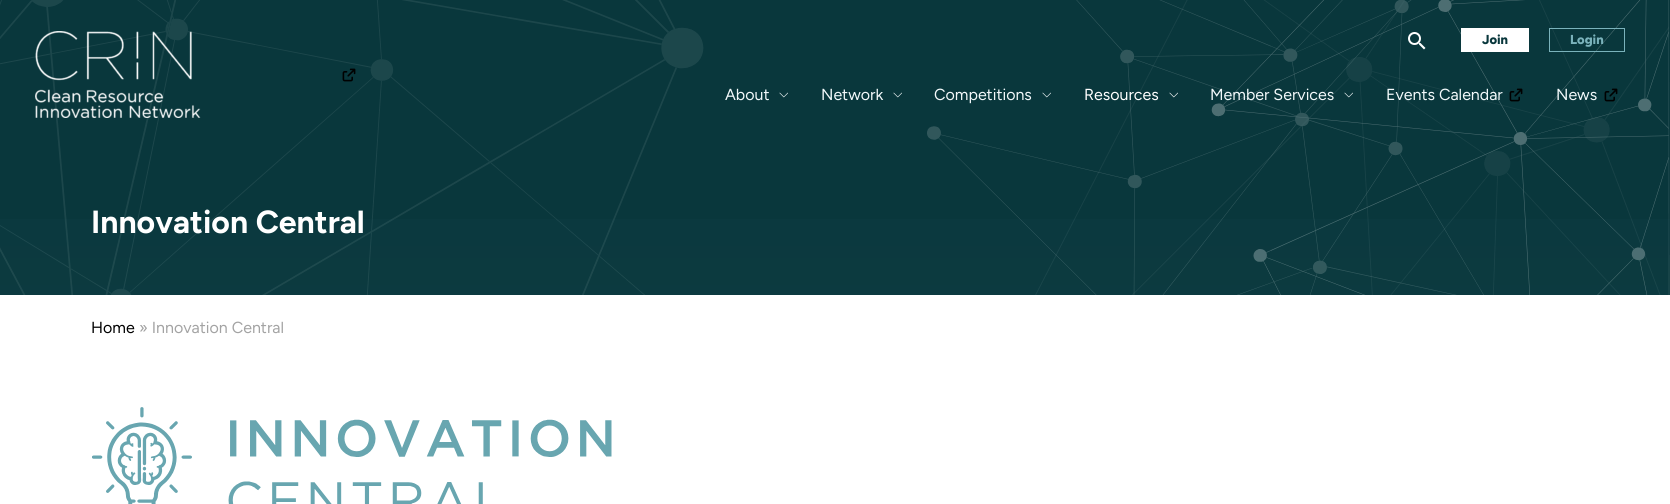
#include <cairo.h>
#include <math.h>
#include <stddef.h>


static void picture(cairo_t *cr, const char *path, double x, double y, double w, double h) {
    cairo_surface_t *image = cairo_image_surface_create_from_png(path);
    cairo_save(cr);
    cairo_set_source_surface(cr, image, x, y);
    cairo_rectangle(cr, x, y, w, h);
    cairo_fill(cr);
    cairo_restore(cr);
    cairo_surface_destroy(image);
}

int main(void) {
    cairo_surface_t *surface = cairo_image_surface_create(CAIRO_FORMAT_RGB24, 1670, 504);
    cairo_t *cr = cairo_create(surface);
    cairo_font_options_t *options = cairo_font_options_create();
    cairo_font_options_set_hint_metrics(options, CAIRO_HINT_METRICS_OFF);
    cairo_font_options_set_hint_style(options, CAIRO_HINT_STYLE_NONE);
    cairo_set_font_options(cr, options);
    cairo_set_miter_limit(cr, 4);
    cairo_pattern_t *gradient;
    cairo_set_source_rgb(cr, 1, 1, 1);
    cairo_paint(cr);
    cairo_set_source_rgb(cr, 0.039, 0.216, 0.235);
    cairo_rectangle(cr, 0, 0, 1670, 295);
    cairo_fill(cr);
    picture(cr, "img8.png", 0, 0, 1670, 295);
    picture(cr, "img1.png", 1408, 32, 18, 18);
    cairo_set_source_rgb(cr, 1, 1, 1);
    cairo_rectangle(cr, 1461, 28, 68, 24);
    cairo_fill(cr);
    cairo_select_font_face(cr, "Figtree ExtraBold", CAIRO_FONT_SLANT_NORMAL, CAIRO_FONT_WEIGHT_NORMAL);
    cairo_set_font_size(cr, 13);
    cairo_set_source_rgb(cr, 0.039, 0.216, 0.235);
    cairo_move_to(cr, 1482, 44);
    cairo_show_text(cr, "Join");
    cairo_rectangle(cr, 1549.5, 28.5, 75, 23);
    cairo_set_source_rgb(cr, 0.478, 0.698, 0.733);
    cairo_set_line_width(cr, 1);
    cairo_stroke(cr);
    cairo_move_to(cr, 1570, 44);
    cairo_show_text(cr, "Login");
    picture(cr, "img2.png", 35, 31, 166, 87);
    picture(cr, "img3.png", 342, 68, 14, 14);
    cairo_select_font_face(cr, "Figtree", CAIRO_FONT_SLANT_NORMAL, CAIRO_FONT_WEIGHT_NORMAL);
    cairo_set_font_size(cr, 16);
    cairo_set_source_rgb(cr, 0.953, 0.976, 0.984);
    cairo_move_to(cr, 725, 100);
    cairo_show_text(cr, "About");
    picture(cr, "img4.png", 779, 92, 9, 6);
    cairo_move_to(cr, 821, 100);
    cairo_show_text(cr, "Network");
    picture(cr, "img4.png", 893, 92, 9, 6);
    cairo_move_to(cr, 934, 100);
    cairo_show_text(cr, "Competitions");
    picture(cr, "img4.png", 1042, 92, 9, 6);
    cairo_set_source_rgb(cr, 1, 1, 1);
    cairo_move_to(cr, 1084, 100);
    cairo_show_text(cr, "Resources");
    picture(cr, "img5.png", 1169, 92, 9, 6);
    cairo_set_source_rgb(cr, 0.953, 0.976, 0.984);
    cairo_move_to(cr, 1210, 100);
    cairo_show_text(cr, "Member Services");
    picture(cr, "img4.png", 1344, 92, 9, 6);
    cairo_move_to(cr, 1386, 100);
    cairo_show_text(cr, "Events Calendar");
    picture(cr, "img6.png", 1509, 88, 14, 14);
    cairo_move_to(cr, 1556, 100);
    cairo_show_text(cr, "News");
    picture(cr, "img7.png", 1604, 88, 14, 14);
    gradient = cairo_pattern_create_linear(835, 0, 835, 295);
    cairo_pattern_add_color_stop_rgba(gradient, 0, 0.082, 0.196, 0.263, 0.04);
    cairo_pattern_add_color_stop_rgba(gradient, 1, 0.227, 0.478, 0.522, 0.05);
    cairo_set_source(cr, gradient);
    cairo_pattern_destroy(gradient);
    cairo_rectangle(cr, 0, 219, 1670, 76);
    cairo_fill(cr);
    cairo_select_font_face(cr, "Figtree", CAIRO_FONT_SLANT_NORMAL, CAIRO_FONT_WEIGHT_BOLD);
    cairo_set_font_size(cr, 32);
    cairo_set_source_rgb(cr, 1, 1, 1);
    cairo_move_to(cr, 91, 233);
    cairo_show_text(cr, "Innovation Central");
    cairo_select_font_face(cr, "Figtree", CAIRO_FONT_SLANT_NORMAL, CAIRO_FONT_WEIGHT_NORMAL);
    cairo_set_font_size(cr, 16);
    cairo_set_source_rgb(cr, 0, 0, 0);
    cairo_move_to(cr, 91, 333);
    cairo_show_text(cr, "Home");
    cairo_set_source_rgb(cr, 0.639, 0.639, 0.639);
    cairo_move_to(cr, 139, 333);
    cairo_show_text(cr, "» Innovation Central");
    picture(cr, "img9.png", 92, 407, 520, 97);
    cairo_surface_write_to_png(surface, "page.png");
    cairo_font_options_destroy(options);
    cairo_destroy(cr);
    cairo_surface_destroy(surface);
    return 0;
}
